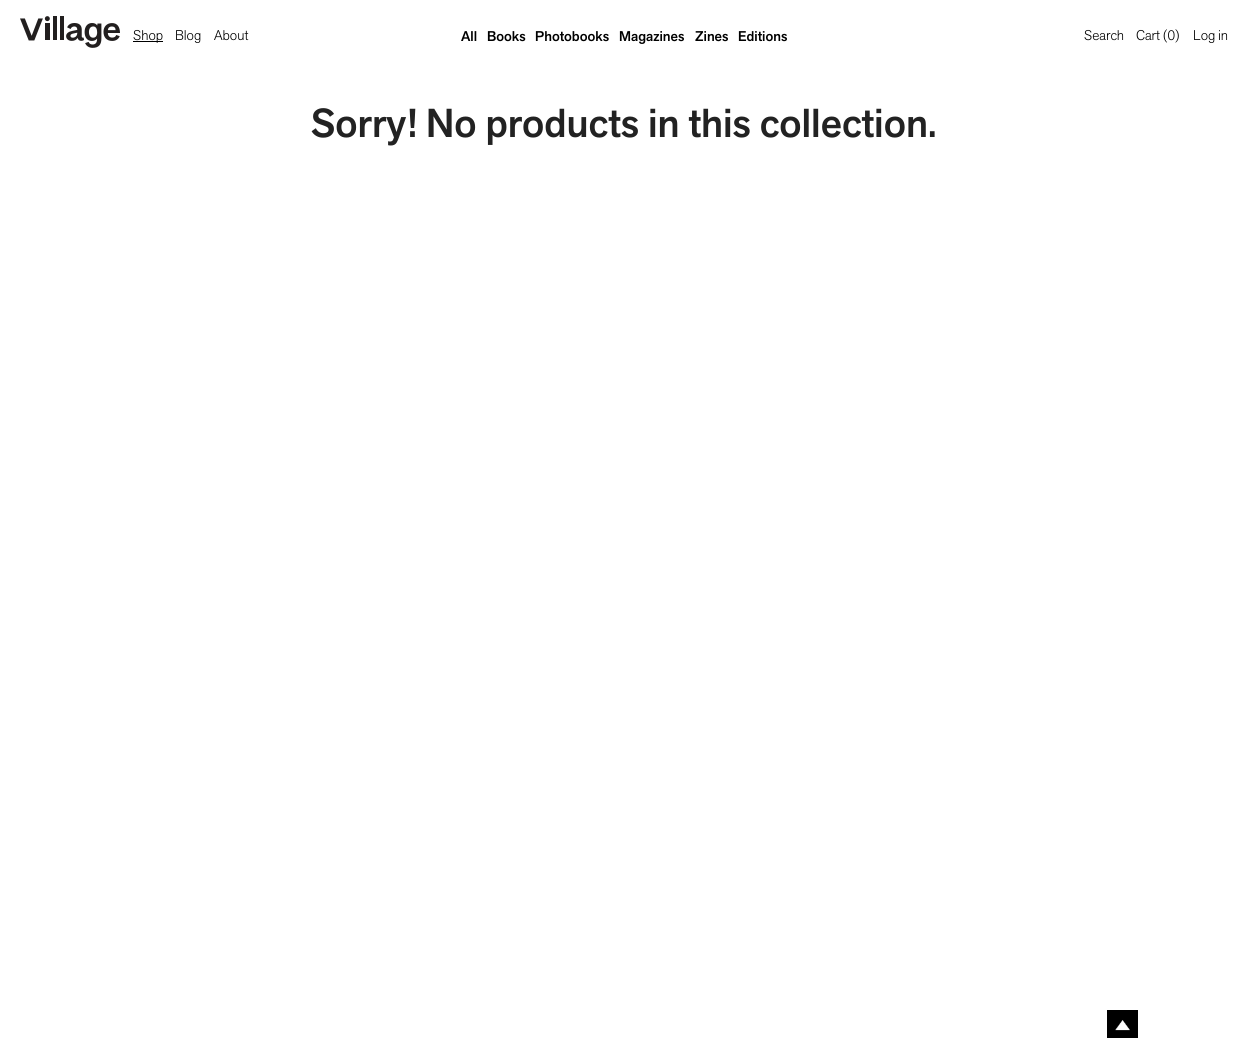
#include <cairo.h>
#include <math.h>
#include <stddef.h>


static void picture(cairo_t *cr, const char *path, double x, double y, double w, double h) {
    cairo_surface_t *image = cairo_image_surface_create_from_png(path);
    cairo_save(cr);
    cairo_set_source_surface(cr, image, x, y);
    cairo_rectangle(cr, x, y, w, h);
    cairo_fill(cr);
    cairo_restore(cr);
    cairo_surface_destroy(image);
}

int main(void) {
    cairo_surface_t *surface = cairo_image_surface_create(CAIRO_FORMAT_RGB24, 1248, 1038);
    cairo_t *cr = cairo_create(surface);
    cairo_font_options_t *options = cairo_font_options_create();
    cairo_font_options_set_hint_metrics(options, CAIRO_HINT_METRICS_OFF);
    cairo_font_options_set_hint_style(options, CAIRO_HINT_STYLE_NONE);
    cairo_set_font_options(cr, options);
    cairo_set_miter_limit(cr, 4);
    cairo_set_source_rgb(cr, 1, 1, 1);
    cairo_paint(cr);
    picture(cr, "img1.png", 20, 16, 100, 32);
    cairo_set_source_rgb(cr, 0, 0, 0);
    cairo_rectangle(cr, 133, 41, 30, 1);
    cairo_fill(cr);
    cairo_select_font_face(cr, "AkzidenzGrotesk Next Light", CAIRO_FONT_SLANT_NORMAL, CAIRO_FONT_WEIGHT_NORMAL);
    cairo_set_font_size(cr, 14);
    cairo_move_to(cr, 133, 40);
    cairo_show_text(cr, "Shop");
    cairo_move_to(cr, 175, 40);
    cairo_show_text(cr, "Blog");
    cairo_move_to(cr, 214, 40);
    cairo_show_text(cr, "About");
    cairo_select_font_face(cr, "AkzidenzGrotesk Next Medium", CAIRO_FONT_SLANT_NORMAL, CAIRO_FONT_WEIGHT_NORMAL);
    cairo_move_to(cr, 461, 41);
    cairo_show_text(cr, "All");
    cairo_move_to(cr, 487, 41);
    cairo_show_text(cr, "Books");
    cairo_move_to(cr, 535, 41);
    cairo_show_text(cr, "Photobooks");
    cairo_move_to(cr, 619, 41);
    cairo_show_text(cr, "Magazines");
    cairo_move_to(cr, 695, 41);
    cairo_show_text(cr, "Zines");
    cairo_move_to(cr, 738, 41);
    cairo_show_text(cr, "Editions");
    cairo_select_font_face(cr, "AkzidenzGrotesk Next Light", CAIRO_FONT_SLANT_NORMAL, CAIRO_FONT_WEIGHT_NORMAL);
    cairo_move_to(cr, 1084, 40);
    cairo_show_text(cr, "Search");
    cairo_move_to(cr, 1136, 40);
    cairo_show_text(cr, "Cart (0)");
    cairo_move_to(cr, 1193, 40);
    cairo_show_text(cr, "Log in");
    cairo_select_font_face(cr, "AkzidenzGrotesk Next Medium", CAIRO_FONT_SLANT_NORMAL, CAIRO_FONT_WEIGHT_NORMAL);
    cairo_set_font_size(cr, 40);
    cairo_set_source_rgb(cr, 0.133, 0.133, 0.133);
    cairo_move_to(cr, 311, 137);
    cairo_show_text(cr, "Sorry! No products in this collection.");
    cairo_set_source_rgb(cr, 0, 0, 0);
    cairo_rectangle(cr, 1107, 1010, 31, 28);
    cairo_fill(cr);
    picture(cr, "img2.png", 1115, 1020, 15, 11);
    cairo_surface_write_to_png(surface, "page.png");
    cairo_font_options_destroy(options);
    cairo_destroy(cr);
    cairo_surface_destroy(surface);
    return 0;
}
